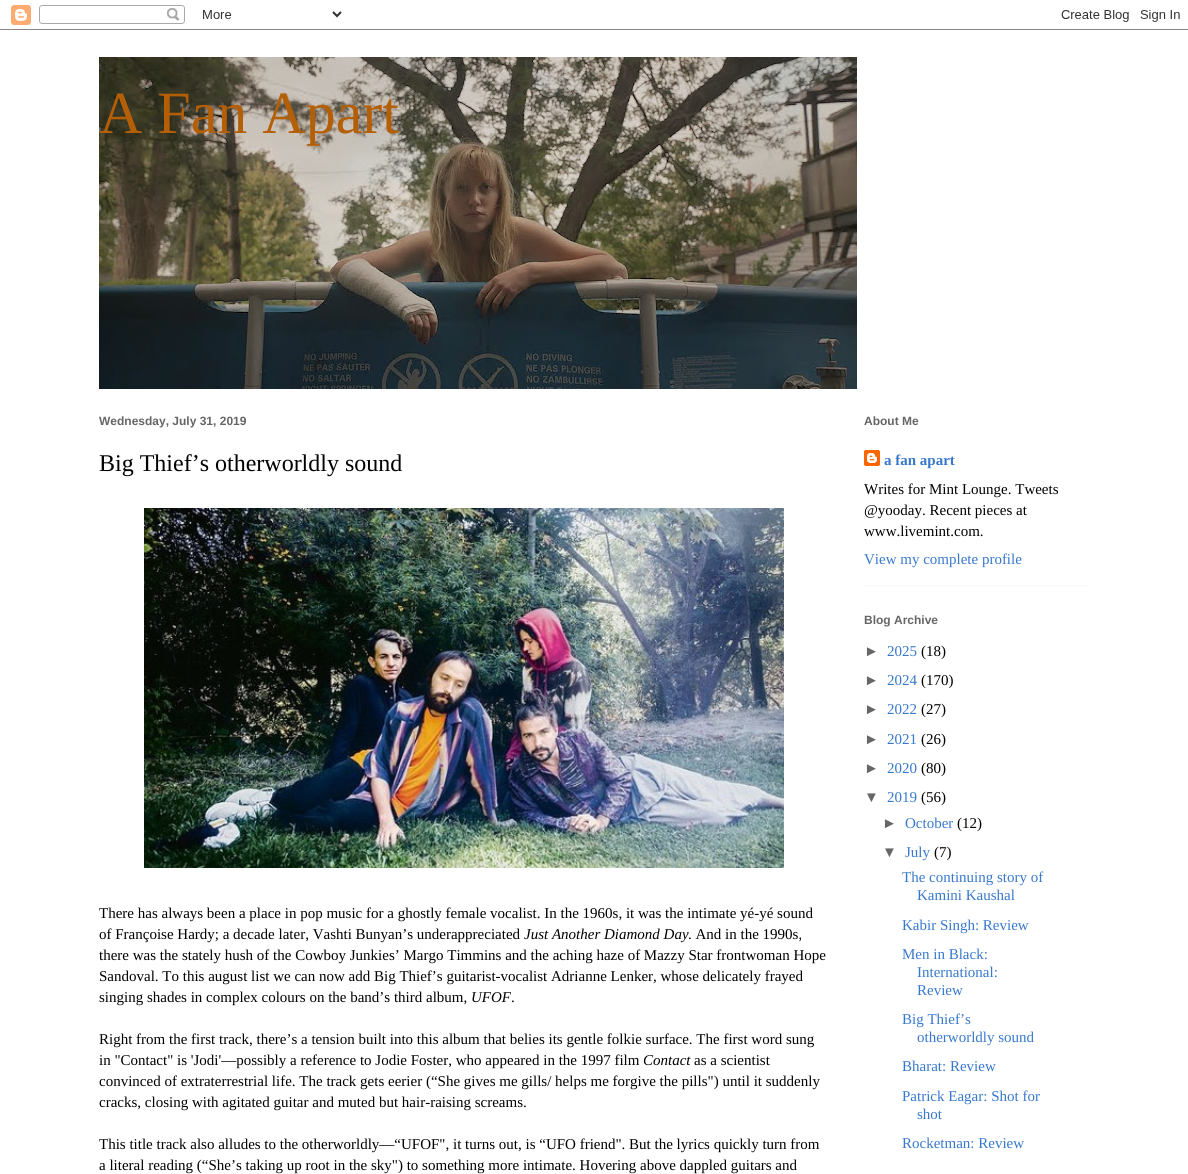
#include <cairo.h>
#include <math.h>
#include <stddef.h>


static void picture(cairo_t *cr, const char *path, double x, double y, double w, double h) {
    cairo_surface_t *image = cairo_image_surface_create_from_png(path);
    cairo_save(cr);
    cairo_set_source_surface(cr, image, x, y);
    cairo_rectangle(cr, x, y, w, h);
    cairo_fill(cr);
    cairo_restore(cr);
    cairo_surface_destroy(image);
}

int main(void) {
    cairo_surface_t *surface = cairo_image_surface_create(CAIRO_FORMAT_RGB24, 1188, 1174);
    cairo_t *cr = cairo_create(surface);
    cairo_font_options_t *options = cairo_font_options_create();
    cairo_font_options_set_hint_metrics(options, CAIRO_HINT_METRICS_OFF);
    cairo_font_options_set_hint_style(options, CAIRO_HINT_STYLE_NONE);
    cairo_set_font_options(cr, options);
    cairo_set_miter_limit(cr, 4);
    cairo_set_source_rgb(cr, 1, 1, 1);
    cairo_paint(cr);
    picture(cr, "img1.png", 0, 5, 1188, 25);
    picture(cr, "img2.png", 99, 57, 758, 332);
    cairo_select_font_face(cr, "Liberation Serif", CAIRO_FONT_SLANT_NORMAL, CAIRO_FONT_WEIGHT_NORMAL);
    cairo_set_font_size(cr, 60);
    cairo_set_source_rgb(cr, 0.706, 0.373, 0.024);
    cairo_move_to(cr, 99, 133);
    cairo_show_text(cr, "A Fan Apart");
    cairo_select_font_face(cr, "Liberation Sans", CAIRO_FONT_SLANT_NORMAL, CAIRO_FONT_WEIGHT_BOLD);
    cairo_set_font_size(cr, 12);
    cairo_set_source_rgb(cr, 0.4, 0.4, 0.4);
    cairo_move_to(cr, 99, 425);
    cairo_show_text(cr, "Wednesday, July 31, 2019");
    cairo_select_font_face(cr, "Liberation Serif", CAIRO_FONT_SLANT_NORMAL, CAIRO_FONT_WEIGHT_NORMAL);
    cairo_set_font_size(cr, 24);
    cairo_set_source_rgb(cr, 0, 0, 0);
    cairo_move_to(cr, 99, 471);
    cairo_show_text(cr, "Big Thief’s otherworldly sound");
    picture(cr, "img3.png", 144, 508, 640, 360);
    cairo_set_font_size(cr, 15);
    cairo_move_to(cr, 99, 918);
    cairo_show_text(cr, "There has always been a place in pop music for a ghostly female vocalist. In the 1960s, it was the intimate yé-yé sound");
    cairo_move_to(cr, 99, 939);
    cairo_show_text(cr, "of Françoise Hardy; a decade later, Vashti Bunyan’s underappreciated");
    cairo_select_font_face(cr, "Liberation Serif", CAIRO_FONT_SLANT_ITALIC, CAIRO_FONT_WEIGHT_NORMAL);
    cairo_move_to(cr, 524, 939);
    cairo_show_text(cr, "Just Another Diamond Day");
    cairo_select_font_face(cr, "Liberation Serif", CAIRO_FONT_SLANT_NORMAL, CAIRO_FONT_WEIGHT_NORMAL);
    cairo_move_to(cr, 688, 939);
    cairo_show_text(cr, ". And in the 1990s,");
    cairo_move_to(cr, 99, 960);
    cairo_show_text(cr, "there was the stately hush of the Cowboy Junkies’ Margo Timmins and the aching haze of Mazzy Star frontwoman Hope");
    cairo_move_to(cr, 99, 981);
    cairo_show_text(cr, "Sandoval. To this august list we can now add Big Thief’s guitarist-vocalist Adrianne Lenker, whose delicately frayed");
    cairo_move_to(cr, 99, 1002);
    cairo_show_text(cr, "singing shades in complex colours on the band’s third album,");
    cairo_select_font_face(cr, "Liberation Serif", CAIRO_FONT_SLANT_ITALIC, CAIRO_FONT_WEIGHT_NORMAL);
    cairo_move_to(cr, 471, 1002);
    cairo_show_text(cr, "UFOF");
    cairo_select_font_face(cr, "Liberation Serif", CAIRO_FONT_SLANT_NORMAL, CAIRO_FONT_WEIGHT_NORMAL);
    cairo_move_to(cr, 511, 1002);
    cairo_show_text(cr, ".");
    cairo_move_to(cr, 99, 1044);
    cairo_show_text(cr, "Right from the first track, there’s a tension built into this album that belies its gentle folkie surface. The first word sung");
    cairo_move_to(cr, 99, 1065);
    cairo_show_text(cr, "in \"Contact\" is 'Jodi'—possibly a reference to Jodie Foster, who appeared in the 1997 film");
    cairo_select_font_face(cr, "Liberation Serif", CAIRO_FONT_SLANT_ITALIC, CAIRO_FONT_WEIGHT_NORMAL);
    cairo_move_to(cr, 643, 1065);
    cairo_show_text(cr, "Contact");
    cairo_select_font_face(cr, "Liberation Serif", CAIRO_FONT_SLANT_NORMAL, CAIRO_FONT_WEIGHT_NORMAL);
    cairo_move_to(cr, 694, 1065);
    cairo_show_text(cr, "as a scientist");
    cairo_move_to(cr, 99, 1086);
    cairo_show_text(cr, "convinced of extraterrestrial life. The track gets eerier (“She gives me gills/ helps me forgive the pills\") until it suddenly");
    cairo_move_to(cr, 99, 1107);
    cairo_show_text(cr, "cracks, closing with agitated guitar and muted but hair-raising screams.");
    cairo_move_to(cr, 99, 1149);
    cairo_show_text(cr, "This title track also alludes to the otherworldly—“UFOF\", it turns out, is “UFO friend\". But the lyrics quickly turn from");
    cairo_move_to(cr, 99, 1170);
    cairo_show_text(cr, "a literal reading (“She’s taking up root in the sky\") to something more intimate. Hovering above dappled guitars and");
    cairo_set_source_rgb(cr, 0.976, 0.976, 0.976);
    cairo_rectangle(cr, 864, 585, 225, 1);
    cairo_fill(cr);
    cairo_select_font_face(cr, "Liberation Sans", CAIRO_FONT_SLANT_NORMAL, CAIRO_FONT_WEIGHT_BOLD);
    cairo_set_font_size(cr, 12);
    cairo_set_source_rgb(cr, 0.4, 0.4, 0.4);
    cairo_move_to(cr, 864, 425);
    cairo_show_text(cr, "About Me");
    picture(cr, "img4.png", 864, 450, 16, 16);
    cairo_select_font_face(cr, "Liberation Serif", CAIRO_FONT_SLANT_NORMAL, CAIRO_FONT_WEIGHT_BOLD);
    cairo_set_font_size(cr, 15);
    cairo_set_source_rgb(cr, 0.216, 0.471, 0.804);
    cairo_move_to(cr, 884, 465);
    cairo_show_text(cr, "a fan apart");
    cairo_select_font_face(cr, "Liberation Serif", CAIRO_FONT_SLANT_NORMAL, CAIRO_FONT_WEIGHT_NORMAL);
    cairo_set_source_rgb(cr, 0, 0, 0);
    cairo_move_to(cr, 864, 494);
    cairo_show_text(cr, "Writes for Mint Lounge. Tweets");
    cairo_move_to(cr, 864, 515);
    cairo_show_text(cr, "@yooday. Recent pieces at");
    cairo_move_to(cr, 864, 536);
    cairo_show_text(cr, "www.livemint.com.");
    cairo_set_source_rgb(cr, 0.216, 0.471, 0.804);
    cairo_move_to(cr, 864, 564);
    cairo_show_text(cr, "View my complete profile");
    cairo_select_font_face(cr, "Liberation Sans", CAIRO_FONT_SLANT_NORMAL, CAIRO_FONT_WEIGHT_BOLD);
    cairo_set_font_size(cr, 12);
    cairo_set_source_rgb(cr, 0.4, 0.4, 0.4);
    cairo_move_to(cr, 864, 624);
    cairo_show_text(cr, "Blog Archive");
    cairo_select_font_face(cr, "Liberation Sans", CAIRO_FONT_SLANT_NORMAL, CAIRO_FONT_WEIGHT_NORMAL);
    cairo_set_font_size(cr, 15);
    cairo_move_to(cr, 864, 656);
    cairo_show_text(cr, "►");
    cairo_select_font_face(cr, "Liberation Serif", CAIRO_FONT_SLANT_NORMAL, CAIRO_FONT_WEIGHT_NORMAL);
    cairo_set_source_rgb(cr, 0.216, 0.471, 0.804);
    cairo_move_to(cr, 887, 656);
    cairo_show_text(cr, "2025");
    cairo_set_source_rgb(cr, 0, 0, 0);
    cairo_move_to(cr, 921, 656);
    cairo_show_text(cr, "(18)");
    cairo_select_font_face(cr, "Liberation Sans", CAIRO_FONT_SLANT_NORMAL, CAIRO_FONT_WEIGHT_NORMAL);
    cairo_set_source_rgb(cr, 0.4, 0.4, 0.4);
    cairo_move_to(cr, 864, 685);
    cairo_show_text(cr, "►");
    cairo_select_font_face(cr, "Liberation Serif", CAIRO_FONT_SLANT_NORMAL, CAIRO_FONT_WEIGHT_NORMAL);
    cairo_set_source_rgb(cr, 0.216, 0.471, 0.804);
    cairo_move_to(cr, 887, 685);
    cairo_show_text(cr, "2024");
    cairo_set_source_rgb(cr, 0, 0, 0);
    cairo_move_to(cr, 921, 685);
    cairo_show_text(cr, "(170)");
    cairo_select_font_face(cr, "Liberation Sans", CAIRO_FONT_SLANT_NORMAL, CAIRO_FONT_WEIGHT_NORMAL);
    cairo_set_source_rgb(cr, 0.4, 0.4, 0.4);
    cairo_move_to(cr, 864, 714);
    cairo_show_text(cr, "►");
    cairo_select_font_face(cr, "Liberation Serif", CAIRO_FONT_SLANT_NORMAL, CAIRO_FONT_WEIGHT_NORMAL);
    cairo_set_source_rgb(cr, 0.216, 0.471, 0.804);
    cairo_move_to(cr, 887, 714);
    cairo_show_text(cr, "2022");
    cairo_set_source_rgb(cr, 0, 0, 0);
    cairo_move_to(cr, 921, 714);
    cairo_show_text(cr, "(27)");
    cairo_select_font_face(cr, "Liberation Sans", CAIRO_FONT_SLANT_NORMAL, CAIRO_FONT_WEIGHT_NORMAL);
    cairo_set_source_rgb(cr, 0.4, 0.4, 0.4);
    cairo_move_to(cr, 864, 744);
    cairo_show_text(cr, "►");
    cairo_select_font_face(cr, "Liberation Serif", CAIRO_FONT_SLANT_NORMAL, CAIRO_FONT_WEIGHT_NORMAL);
    cairo_set_source_rgb(cr, 0.216, 0.471, 0.804);
    cairo_move_to(cr, 887, 744);
    cairo_show_text(cr, "2021");
    cairo_set_source_rgb(cr, 0, 0, 0);
    cairo_move_to(cr, 921, 744);
    cairo_show_text(cr, "(26)");
    cairo_select_font_face(cr, "Liberation Sans", CAIRO_FONT_SLANT_NORMAL, CAIRO_FONT_WEIGHT_NORMAL);
    cairo_set_source_rgb(cr, 0.4, 0.4, 0.4);
    cairo_move_to(cr, 864, 773);
    cairo_show_text(cr, "►");
    cairo_select_font_face(cr, "Liberation Serif", CAIRO_FONT_SLANT_NORMAL, CAIRO_FONT_WEIGHT_NORMAL);
    cairo_set_source_rgb(cr, 0.216, 0.471, 0.804);
    cairo_move_to(cr, 887, 773);
    cairo_show_text(cr, "2020");
    cairo_set_source_rgb(cr, 0, 0, 0);
    cairo_move_to(cr, 921, 773);
    cairo_show_text(cr, "(80)");
    cairo_select_font_face(cr, "Liberation Sans", CAIRO_FONT_SLANT_NORMAL, CAIRO_FONT_WEIGHT_NORMAL);
    cairo_set_source_rgb(cr, 0.4, 0.4, 0.4);
    cairo_move_to(cr, 864, 802);
    cairo_show_text(cr, "▼");
    cairo_select_font_face(cr, "Liberation Serif", CAIRO_FONT_SLANT_NORMAL, CAIRO_FONT_WEIGHT_NORMAL);
    cairo_set_source_rgb(cr, 0.216, 0.471, 0.804);
    cairo_move_to(cr, 887, 802);
    cairo_show_text(cr, "2019");
    cairo_set_source_rgb(cr, 0, 0, 0);
    cairo_move_to(cr, 921, 802);
    cairo_show_text(cr, "(56)");
    cairo_select_font_face(cr, "Liberation Sans", CAIRO_FONT_SLANT_NORMAL, CAIRO_FONT_WEIGHT_NORMAL);
    cairo_set_source_rgb(cr, 0.4, 0.4, 0.4);
    cairo_move_to(cr, 882, 828);
    cairo_show_text(cr, "►");
    cairo_select_font_face(cr, "Liberation Serif", CAIRO_FONT_SLANT_NORMAL, CAIRO_FONT_WEIGHT_NORMAL);
    cairo_set_source_rgb(cr, 0.216, 0.471, 0.804);
    cairo_move_to(cr, 905, 828);
    cairo_show_text(cr, "October");
    cairo_set_source_rgb(cr, 0, 0, 0);
    cairo_move_to(cr, 957, 828);
    cairo_show_text(cr, "(12)");
    cairo_select_font_face(cr, "Liberation Sans", CAIRO_FONT_SLANT_NORMAL, CAIRO_FONT_WEIGHT_NORMAL);
    cairo_set_source_rgb(cr, 0.4, 0.4, 0.4);
    cairo_move_to(cr, 882, 857);
    cairo_show_text(cr, "▼");
    cairo_select_font_face(cr, "Liberation Serif", CAIRO_FONT_SLANT_NORMAL, CAIRO_FONT_WEIGHT_NORMAL);
    cairo_set_source_rgb(cr, 0.216, 0.471, 0.804);
    cairo_move_to(cr, 905, 857);
    cairo_show_text(cr, "July");
    cairo_set_source_rgb(cr, 0, 0, 0);
    cairo_move_to(cr, 934, 857);
    cairo_show_text(cr, "(7)");
    cairo_set_source_rgb(cr, 0.216, 0.471, 0.804);
    cairo_move_to(cr, 902, 882);
    cairo_show_text(cr, "The continuing story of");
    cairo_move_to(cr, 917, 900);
    cairo_show_text(cr, "Kamini Kaushal");
    cairo_move_to(cr, 902, 930);
    cairo_show_text(cr, "Kabir Singh: Review");
    cairo_move_to(cr, 902, 959);
    cairo_show_text(cr, "Men in Black:");
    cairo_move_to(cr, 917, 977);
    cairo_show_text(cr, "International:");
    cairo_move_to(cr, 917, 995);
    cairo_show_text(cr, "Review");
    cairo_move_to(cr, 902, 1024);
    cairo_show_text(cr, "Big Thief’s");
    cairo_move_to(cr, 917, 1042);
    cairo_show_text(cr, "otherworldly sound");
    cairo_move_to(cr, 902, 1071);
    cairo_show_text(cr, "Bharat: Review");
    cairo_move_to(cr, 902, 1101);
    cairo_show_text(cr, "Patrick Eagar: Shot for");
    cairo_move_to(cr, 917, 1119);
    cairo_show_text(cr, "shot");
    cairo_move_to(cr, 902, 1148);
    cairo_show_text(cr, "Rocketman: Review");
    cairo_surface_write_to_png(surface, "page.png");
    cairo_font_options_destroy(options);
    cairo_destroy(cr);
    cairo_surface_destroy(surface);
    return 0;
}
